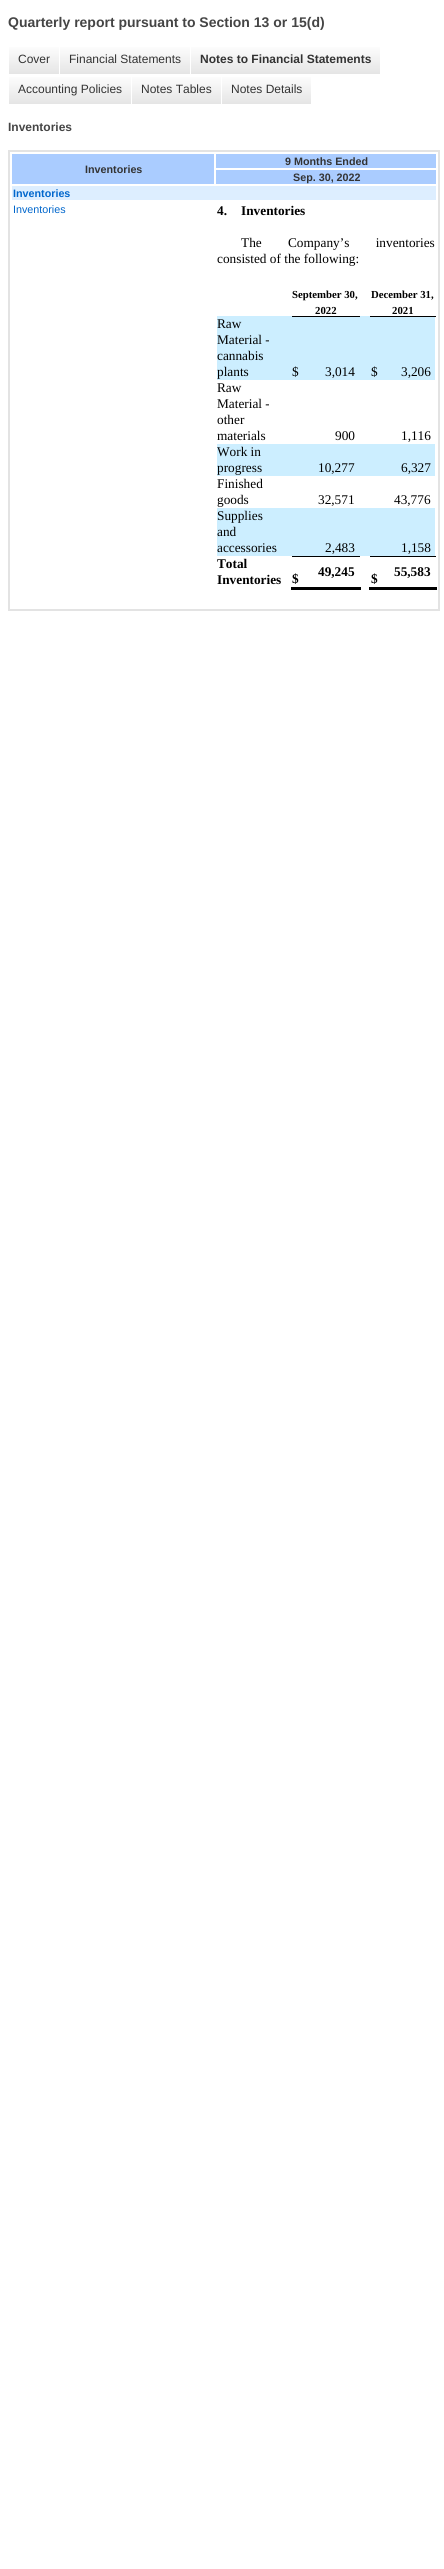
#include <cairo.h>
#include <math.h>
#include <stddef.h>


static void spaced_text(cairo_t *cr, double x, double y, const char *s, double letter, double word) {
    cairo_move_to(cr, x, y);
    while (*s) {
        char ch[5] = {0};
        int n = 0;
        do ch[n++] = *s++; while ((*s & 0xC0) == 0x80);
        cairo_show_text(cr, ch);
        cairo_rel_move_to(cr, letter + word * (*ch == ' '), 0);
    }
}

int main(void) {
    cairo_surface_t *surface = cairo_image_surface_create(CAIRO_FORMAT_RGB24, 444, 2569);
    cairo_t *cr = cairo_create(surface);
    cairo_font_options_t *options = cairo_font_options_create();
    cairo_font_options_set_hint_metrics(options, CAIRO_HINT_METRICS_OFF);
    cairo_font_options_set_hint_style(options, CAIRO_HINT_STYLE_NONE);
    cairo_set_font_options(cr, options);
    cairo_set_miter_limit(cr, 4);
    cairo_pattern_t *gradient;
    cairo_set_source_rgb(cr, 1, 1, 1);
    cairo_paint(cr);
    cairo_select_font_face(cr, "Liberation Sans", CAIRO_FONT_SLANT_NORMAL, CAIRO_FONT_WEIGHT_BOLD);
    cairo_set_font_size(cr, 14);
    cairo_set_source_rgb(cr, 0.271, 0.271, 0.271);
    cairo_move_to(cr, 8, 27);
    cairo_show_text(cr, "Quarterly report pursuant to Section 13 or 15(d)");
    gradient = cairo_pattern_create_linear(34, 44, 34, 74);
    cairo_pattern_add_color_stop_rgba(gradient, 0, 1, 1, 1, 1);
    cairo_pattern_add_color_stop_rgba(gradient, 1, 0.898, 0.898, 0.898, 1);
    cairo_set_source(cr, gradient);
    cairo_pattern_destroy(gradient);
    cairo_rectangle(cr, 9, 47, 50, 27);
    cairo_fill(cr);
    cairo_select_font_face(cr, "Liberation Sans", CAIRO_FONT_SLANT_NORMAL, CAIRO_FONT_WEIGHT_NORMAL);
    cairo_set_font_size(cr, 12);
    cairo_set_source_rgb(cr, 0.2, 0.2, 0.2);
    cairo_move_to(cr, 18, 63);
    cairo_show_text(cr, "Cover");
    gradient = cairo_pattern_create_linear(125, 44, 125, 74);
    cairo_pattern_add_color_stop_rgba(gradient, 0, 1, 1, 1, 1);
    cairo_pattern_add_color_stop_rgba(gradient, 1, 0.898, 0.898, 0.898, 1);
    cairo_set_source(cr, gradient);
    cairo_pattern_destroy(gradient);
    cairo_rectangle(cr, 60, 47, 130, 27);
    cairo_fill(cr);
    cairo_set_source_rgb(cr, 0.2, 0.2, 0.2);
    cairo_move_to(cr, 69, 63);
    cairo_show_text(cr, "Financial Statements");
    gradient = cairo_pattern_create_linear(286, 44, 286, 74);
    cairo_pattern_add_color_stop_rgba(gradient, 0, 1, 1, 1, 1);
    cairo_pattern_add_color_stop_rgba(gradient, 1, 0.898, 0.898, 0.898, 1);
    cairo_set_source(cr, gradient);
    cairo_pattern_destroy(gradient);
    cairo_rectangle(cr, 191, 47, 189, 27);
    cairo_fill(cr);
    cairo_select_font_face(cr, "Liberation Sans", CAIRO_FONT_SLANT_NORMAL, CAIRO_FONT_WEIGHT_BOLD);
    cairo_set_source_rgb(cr, 0.2, 0.2, 0.2);
    cairo_move_to(cr, 200, 63);
    cairo_show_text(cr, "Notes to Financial Statements");
    gradient = cairo_pattern_create_linear(70, 74, 70, 104);
    cairo_pattern_add_color_stop_rgba(gradient, 0, 1, 1, 1, 1);
    cairo_pattern_add_color_stop_rgba(gradient, 1, 0.898, 0.898, 0.898, 1);
    cairo_set_source(cr, gradient);
    cairo_pattern_destroy(gradient);
    cairo_rectangle(cr, 9, 77, 122, 27);
    cairo_fill(cr);
    cairo_select_font_face(cr, "Liberation Sans", CAIRO_FONT_SLANT_NORMAL, CAIRO_FONT_WEIGHT_NORMAL);
    cairo_set_source_rgb(cr, 0.2, 0.2, 0.2);
    cairo_move_to(cr, 18, 93);
    cairo_show_text(cr, "Accounting Policies");
    gradient = cairo_pattern_create_linear(177, 74, 177, 104);
    cairo_pattern_add_color_stop_rgba(gradient, 0, 1, 1, 1, 1);
    cairo_pattern_add_color_stop_rgba(gradient, 1, 0.898, 0.898, 0.898, 1);
    cairo_set_source(cr, gradient);
    cairo_pattern_destroy(gradient);
    cairo_rectangle(cr, 132, 77, 89, 27);
    cairo_fill(cr);
    cairo_set_source_rgb(cr, 0.2, 0.2, 0.2);
    cairo_move_to(cr, 141, 93);
    cairo_show_text(cr, "Notes Tables");
    gradient = cairo_pattern_create_linear(267, 74, 267, 104);
    cairo_pattern_add_color_stop_rgba(gradient, 0, 1, 1, 1, 1);
    cairo_pattern_add_color_stop_rgba(gradient, 1, 0.898, 0.898, 0.898, 1);
    cairo_set_source(cr, gradient);
    cairo_pattern_destroy(gradient);
    cairo_rectangle(cr, 222, 77, 89, 27);
    cairo_fill(cr);
    cairo_set_source_rgb(cr, 0.2, 0.2, 0.2);
    cairo_move_to(cr, 231, 93);
    cairo_show_text(cr, "Notes Details");
    cairo_select_font_face(cr, "Liberation Sans", CAIRO_FONT_SLANT_NORMAL, CAIRO_FONT_WEIGHT_BOLD);
    cairo_set_source_rgb(cr, 0.271, 0.271, 0.271);
    cairo_move_to(cr, 8, 131);
    cairo_show_text(cr, "Inventories");
    cairo_rectangle(cr, 9, 151, 430, 459);
    cairo_set_source_rgb(cr, 0.89, 0.89, 0.89);
    cairo_stroke(cr);
    cairo_set_source_rgb(cr, 0.667, 0.8, 1);
    cairo_rectangle(cr, 216, 154, 220, 14);
    cairo_fill(cr);
    cairo_set_font_size(cr, 10.75);
    cairo_set_source_rgb(cr, 0.2, 0.2, 0.2);
    cairo_move_to(cr, 285, 165);
    cairo_show_text(cr, "9 Months Ended");
    cairo_set_source_rgb(cr, 0.667, 0.8, 1);
    cairo_rectangle(cr, 12, 154, 202, 30);
    cairo_fill(cr);
    cairo_set_source_rgb(cr, 0.2, 0.2, 0.2);
    cairo_move_to(cr, 85, 173);
    cairo_show_text(cr, "Inventories");
    cairo_set_source_rgb(cr, 0.667, 0.8, 1);
    cairo_rectangle(cr, 216, 170, 220, 14);
    cairo_fill(cr);
    cairo_set_source_rgb(cr, 0.2, 0.2, 0.2);
    cairo_move_to(cr, 293, 181);
    cairo_show_text(cr, "Sep. 30, 2022");
    cairo_set_source_rgb(cr, 0.867, 0.933, 1);
    cairo_rectangle(cr, 12, 186, 424, 14);
    cairo_fill(cr);
    cairo_set_source_rgb(cr, 0, 0.4, 0.8);
    cairo_move_to(cr, 13, 197);
    cairo_show_text(cr, "Inventories");
    cairo_select_font_face(cr, "Liberation Sans", CAIRO_FONT_SLANT_NORMAL, CAIRO_FONT_WEIGHT_NORMAL);
    cairo_move_to(cr, 13, 213);
    cairo_show_text(cr, "Inventories");
    cairo_select_font_face(cr, "Liberation Serif", CAIRO_FONT_SLANT_NORMAL, CAIRO_FONT_WEIGHT_BOLD);
    cairo_set_font_size(cr, 13.3);
    cairo_set_source_rgb(cr, 0, 0, 0);
    cairo_move_to(cr, 217, 215);
    cairo_show_text(cr, "4.");
    cairo_move_to(cr, 241, 215);
    cairo_show_text(cr, "Inventories");
    cairo_select_font_face(cr, "Liberation Serif", CAIRO_FONT_SLANT_NORMAL, CAIRO_FONT_WEIGHT_NORMAL);
    spaced_text(cr, 241, 247, "The Company’s inventories", 0, 23);
    cairo_move_to(cr, 217, 263);
    cairo_show_text(cr, "consisted of the following:");
    cairo_select_font_face(cr, "Liberation Serif", CAIRO_FONT_SLANT_NORMAL, CAIRO_FONT_WEIGHT_BOLD);
    cairo_set_font_size(cr, 10.75);
    cairo_move_to(cr, 292, 298);
    cairo_show_text(cr, "September 30,");
    cairo_move_to(cr, 371, 298);
    cairo_show_text(cr, "December 31,");
    cairo_rectangle(cr, 292, 316, 68, 1);
    cairo_fill(cr);
    cairo_move_to(cr, 315, 314);
    cairo_show_text(cr, "2022");
    cairo_set_source_rgb(cr, 0.8, 0.933, 1);
    cairo_rectangle(cr, 360, 316, 19, 64);
    cairo_fill(cr);
    cairo_set_source_rgb(cr, 0, 0, 0);
    cairo_rectangle(cr, 370, 316, 66, 1);
    cairo_fill(cr);
    cairo_move_to(cr, 392, 314);
    cairo_show_text(cr, "2021");
    cairo_set_source_rgb(cr, 0.8, 0.933, 1);
    cairo_rectangle(cr, 217, 316, 75, 64);
    cairo_fill(cr);
    cairo_select_font_face(cr, "Liberation Serif", CAIRO_FONT_SLANT_NORMAL, CAIRO_FONT_WEIGHT_NORMAL);
    cairo_set_font_size(cr, 13.3);
    cairo_set_source_rgb(cr, 0, 0, 0);
    cairo_move_to(cr, 217, 328);
    cairo_show_text(cr, "Raw");
    cairo_move_to(cr, 217, 344);
    cairo_show_text(cr, "Material -");
    cairo_move_to(cr, 217, 360);
    cairo_show_text(cr, "cannabis");
    cairo_move_to(cr, 217, 376);
    cairo_show_text(cr, "plants");
    cairo_set_source_rgb(cr, 0.8, 0.933, 1);
    cairo_rectangle(cr, 292, 317, 68, 63);
    cairo_fill(cr);
    cairo_set_source_rgb(cr, 0, 0, 0);
    cairo_move_to(cr, 292, 376);
    cairo_show_text(cr, "$");
    cairo_move_to(cr, 325, 376);
    cairo_show_text(cr, "3,014");
    cairo_move_to(cr, 371, 376);
    cairo_show_text(cr, "$");
    cairo_set_source_rgb(cr, 0.8, 0.933, 1);
    cairo_rectangle(cr, 379, 317, 56, 63);
    cairo_fill(cr);
    cairo_set_source_rgb(cr, 0, 0, 0);
    cairo_move_to(cr, 401, 376);
    cairo_show_text(cr, "3,206");
    cairo_move_to(cr, 217, 392);
    cairo_show_text(cr, "Raw");
    cairo_move_to(cr, 217, 408);
    cairo_show_text(cr, "Material -");
    cairo_move_to(cr, 217, 424);
    cairo_show_text(cr, "other");
    cairo_move_to(cr, 217, 440);
    cairo_show_text(cr, "materials");
    cairo_move_to(cr, 335, 440);
    cairo_show_text(cr, "900");
    cairo_move_to(cr, 401, 440);
    cairo_show_text(cr, "1,116");
    cairo_set_source_rgb(cr, 0.8, 0.933, 1);
    cairo_rectangle(cr, 217, 444, 218, 32);
    cairo_fill(cr);
    cairo_set_source_rgb(cr, 0, 0, 0);
    cairo_move_to(cr, 217, 456);
    cairo_show_text(cr, "Work in");
    cairo_move_to(cr, 217, 472);
    cairo_show_text(cr, "progress");
    cairo_move_to(cr, 318, 472);
    cairo_show_text(cr, "10,277");
    cairo_move_to(cr, 401, 472);
    cairo_show_text(cr, "6,327");
    cairo_move_to(cr, 217, 488);
    cairo_show_text(cr, "Finished");
    cairo_move_to(cr, 217, 504);
    cairo_show_text(cr, "goods");
    cairo_move_to(cr, 318, 504);
    cairo_show_text(cr, "32,571");
    cairo_move_to(cr, 394, 504);
    cairo_show_text(cr, "43,776");
    cairo_set_source_rgb(cr, 0.8, 0.933, 1);
    cairo_rectangle(cr, 217, 508, 218, 48);
    cairo_fill(cr);
    cairo_set_source_rgb(cr, 0, 0, 0);
    cairo_move_to(cr, 217, 520);
    cairo_show_text(cr, "Supplies");
    cairo_move_to(cr, 217, 536);
    cairo_show_text(cr, "and");
    cairo_move_to(cr, 217, 552);
    cairo_show_text(cr, "accessories");
    cairo_rectangle(cr, 292, 556, 68, 1);
    cairo_fill(cr);
    cairo_move_to(cr, 325, 552);
    cairo_show_text(cr, "2,483");
    cairo_rectangle(cr, 370, 556, 66, 1);
    cairo_fill(cr);
    cairo_move_to(cr, 401, 552);
    cairo_show_text(cr, "1,158");
    cairo_select_font_face(cr, "Liberation Serif", CAIRO_FONT_SLANT_NORMAL, CAIRO_FONT_WEIGHT_BOLD);
    cairo_move_to(cr, 217, 568);
    cairo_show_text(cr, "Total");
    cairo_move_to(cr, 217, 584);
    cairo_show_text(cr, "Inventories");
    cairo_move_to(cr, 292, 583);
    cairo_show_text(cr, "$");
    cairo_rectangle(cr, 291, 587, 70, 3);
    cairo_fill(cr);
    cairo_move_to(cr, 318, 576);
    cairo_show_text(cr, "49,245");
    cairo_move_to(cr, 371, 583);
    cairo_show_text(cr, "$");
    cairo_rectangle(cr, 369, 587, 68, 3);
    cairo_fill(cr);
    cairo_move_to(cr, 394, 576);
    cairo_show_text(cr, "55,583");
    cairo_surface_write_to_png(surface, "page.png");
    cairo_font_options_destroy(options);
    cairo_destroy(cr);
    cairo_surface_destroy(surface);
    return 0;
}
